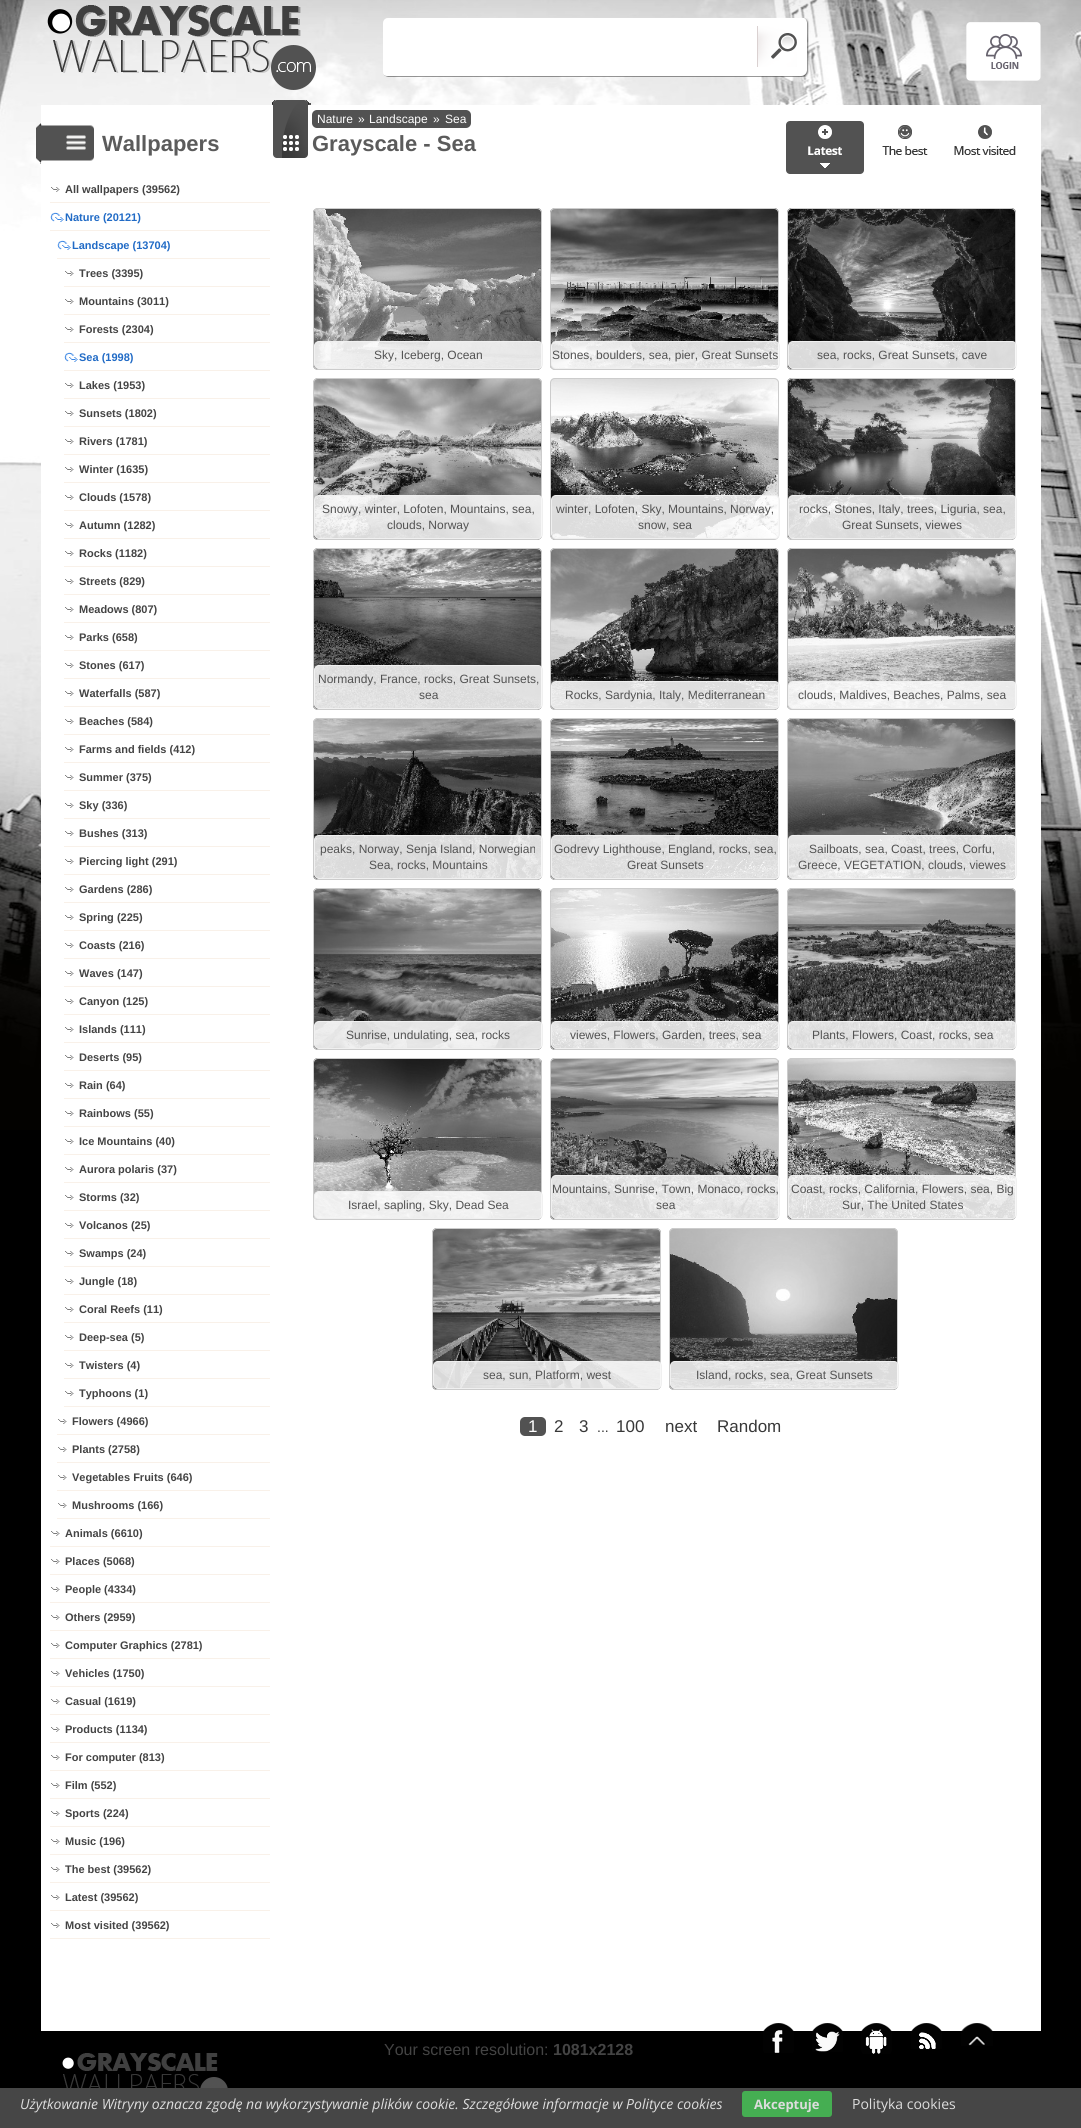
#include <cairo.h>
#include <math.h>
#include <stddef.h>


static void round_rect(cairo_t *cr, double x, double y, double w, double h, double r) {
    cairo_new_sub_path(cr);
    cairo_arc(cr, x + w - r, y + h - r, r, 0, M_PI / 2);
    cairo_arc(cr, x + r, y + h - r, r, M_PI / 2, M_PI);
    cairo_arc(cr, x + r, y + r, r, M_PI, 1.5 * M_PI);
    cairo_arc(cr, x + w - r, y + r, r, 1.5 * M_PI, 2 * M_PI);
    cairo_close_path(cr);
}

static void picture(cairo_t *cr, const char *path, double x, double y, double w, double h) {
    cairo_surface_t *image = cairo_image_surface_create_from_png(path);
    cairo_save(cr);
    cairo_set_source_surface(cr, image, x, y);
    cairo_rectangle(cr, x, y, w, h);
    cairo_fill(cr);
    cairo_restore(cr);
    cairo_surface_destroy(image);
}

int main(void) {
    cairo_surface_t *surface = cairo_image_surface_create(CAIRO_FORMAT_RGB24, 1081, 2128);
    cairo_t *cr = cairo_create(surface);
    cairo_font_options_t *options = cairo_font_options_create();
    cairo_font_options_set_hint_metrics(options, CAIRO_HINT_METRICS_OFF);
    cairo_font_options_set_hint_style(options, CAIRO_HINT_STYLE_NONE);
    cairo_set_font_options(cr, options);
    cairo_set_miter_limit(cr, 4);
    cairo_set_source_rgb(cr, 0, 0, 0);
    cairo_paint(cr);
    picture(cr, "img1.png", 0, 0, 1081, 1070);
    picture(cr, "img2.png", 0, 0, 1081, 1130);
    picture(cr, "img3.png", 47, 5, 269, 85);
    picture(cr, "img4.png", 383, 18, 426, 59);
    picture(cr, "img5.png", 966, 22, 75, 59);
    cairo_set_source_rgb(cr, 1, 1, 1);
    cairo_rectangle(cr, 41, 105, 1000, 1926);
    cairo_fill(cr);
    cairo_set_source_rgb(cr, 0.322, 0.322, 0.322);
    round_rect(cr, 312, 110, 159, 18, 5);
    cairo_fill(cr);
    cairo_select_font_face(cr, "Liberation Sans", CAIRO_FONT_SLANT_NORMAL, CAIRO_FONT_WEIGHT_NORMAL);
    cairo_set_font_size(cr, 12);
    cairo_set_source_rgb(cr, 1, 1, 1);
    cairo_move_to(cr, 317, 123);
    cairo_show_text(cr, "Nature");
    cairo_move_to(cr, 358, 123);
    cairo_show_text(cr, "»");
    cairo_move_to(cr, 369, 123);
    cairo_show_text(cr, "Landscape");
    cairo_move_to(cr, 433, 123);
    cairo_show_text(cr, "»");
    cairo_move_to(cr, 445, 123);
    cairo_show_text(cr, "Sea");
    picture(cr, "img6.png", 36, 123, 58, 41);
    cairo_select_font_face(cr, "Liberation Sans", CAIRO_FONT_SLANT_NORMAL, CAIRO_FONT_WEIGHT_BOLD);
    cairo_set_font_size(cr, 22);
    cairo_set_source_rgb(cr, 0.357, 0.357, 0.357);
    cairo_move_to(cr, 102, 151);
    cairo_show_text(cr, "Wallpapers");
    picture(cr, "img7.png", 51, 187, 9, 5);
    cairo_set_source_rgb(cr, 0.973, 0.945, 0.914);
    cairo_rectangle(cr, 50, 202, 220, 1);
    cairo_fill(cr);
    cairo_set_font_size(cr, 11);
    cairo_set_source_rgb(cr, 0.267, 0.267, 0.267);
    cairo_move_to(cr, 65, 193);
    cairo_show_text(cr, "All wallpapers (39562)");
    picture(cr, "img8.png", 50, 212, 14, 10);
    cairo_set_source_rgb(cr, 0.973, 0.945, 0.914);
    cairo_rectangle(cr, 50, 230, 220, 1);
    cairo_fill(cr);
    cairo_set_source_rgb(cr, 0.129, 0.42, 0.776);
    cairo_move_to(cr, 65, 221);
    cairo_show_text(cr, "Nature (20121)");
    picture(cr, "img9.png", 57, 240, 14, 10);
    cairo_set_source_rgb(cr, 0.973, 0.945, 0.914);
    cairo_rectangle(cr, 57, 258, 213, 1);
    cairo_fill(cr);
    cairo_set_source_rgb(cr, 0.129, 0.42, 0.776);
    cairo_move_to(cr, 72, 249);
    cairo_show_text(cr, "Landscape (13704)");
    picture(cr, "img7.png", 65, 271, 9, 5);
    cairo_set_source_rgb(cr, 0.973, 0.945, 0.914);
    cairo_rectangle(cr, 64, 286, 206, 1);
    cairo_fill(cr);
    cairo_set_source_rgb(cr, 0.267, 0.267, 0.267);
    cairo_move_to(cr, 79, 277);
    cairo_show_text(cr, "Trees (3395)");
    picture(cr, "img7.png", 65, 299, 9, 5);
    cairo_set_source_rgb(cr, 0.973, 0.945, 0.914);
    cairo_rectangle(cr, 64, 314, 206, 1);
    cairo_fill(cr);
    cairo_set_source_rgb(cr, 0.267, 0.267, 0.267);
    cairo_move_to(cr, 79, 305);
    cairo_show_text(cr, "Mountains (3011)");
    picture(cr, "img7.png", 65, 327, 9, 5);
    cairo_set_source_rgb(cr, 0.973, 0.945, 0.914);
    cairo_rectangle(cr, 64, 342, 206, 1);
    cairo_fill(cr);
    cairo_set_source_rgb(cr, 0.267, 0.267, 0.267);
    cairo_move_to(cr, 79, 333);
    cairo_show_text(cr, "Forests (2304)");
    picture(cr, "img8.png", 64, 352, 14, 10);
    cairo_set_source_rgb(cr, 0.973, 0.945, 0.914);
    cairo_rectangle(cr, 64, 370, 206, 1);
    cairo_fill(cr);
    cairo_set_source_rgb(cr, 0.129, 0.42, 0.776);
    cairo_move_to(cr, 79, 361);
    cairo_show_text(cr, "Sea (1998)");
    picture(cr, "img7.png", 65, 383, 9, 5);
    cairo_set_source_rgb(cr, 0.973, 0.945, 0.914);
    cairo_rectangle(cr, 64, 398, 206, 1);
    cairo_fill(cr);
    cairo_set_source_rgb(cr, 0.267, 0.267, 0.267);
    cairo_move_to(cr, 79, 389);
    cairo_show_text(cr, "Lakes (1953)");
    picture(cr, "img7.png", 65, 411, 9, 5);
    cairo_set_source_rgb(cr, 0.973, 0.945, 0.914);
    cairo_rectangle(cr, 64, 426, 206, 1);
    cairo_fill(cr);
    cairo_set_source_rgb(cr, 0.267, 0.267, 0.267);
    cairo_move_to(cr, 79, 417);
    cairo_show_text(cr, "Sunsets (1802)");
    picture(cr, "img7.png", 65, 439, 9, 5);
    cairo_set_source_rgb(cr, 0.973, 0.945, 0.914);
    cairo_rectangle(cr, 64, 454, 206, 1);
    cairo_fill(cr);
    cairo_set_source_rgb(cr, 0.267, 0.267, 0.267);
    cairo_move_to(cr, 79, 445);
    cairo_show_text(cr, "Rivers (1781)");
    picture(cr, "img7.png", 65, 467, 9, 5);
    cairo_set_source_rgb(cr, 0.973, 0.945, 0.914);
    cairo_rectangle(cr, 64, 482, 206, 1);
    cairo_fill(cr);
    cairo_set_source_rgb(cr, 0.267, 0.267, 0.267);
    cairo_move_to(cr, 79, 473);
    cairo_show_text(cr, "Winter (1635)");
    picture(cr, "img7.png", 65, 495, 9, 5);
    cairo_set_source_rgb(cr, 0.973, 0.945, 0.914);
    cairo_rectangle(cr, 64, 510, 206, 1);
    cairo_fill(cr);
    cairo_set_source_rgb(cr, 0.267, 0.267, 0.267);
    cairo_move_to(cr, 79, 501);
    cairo_show_text(cr, "Clouds (1578)");
    picture(cr, "img7.png", 65, 523, 9, 5);
    cairo_set_source_rgb(cr, 0.973, 0.945, 0.914);
    cairo_rectangle(cr, 64, 538, 206, 1);
    cairo_fill(cr);
    cairo_set_source_rgb(cr, 0.267, 0.267, 0.267);
    cairo_move_to(cr, 79, 529);
    cairo_show_text(cr, "Autumn (1282)");
    picture(cr, "img7.png", 65, 551, 9, 5);
    cairo_set_source_rgb(cr, 0.973, 0.945, 0.914);
    cairo_rectangle(cr, 64, 566, 206, 1);
    cairo_fill(cr);
    cairo_set_source_rgb(cr, 0.267, 0.267, 0.267);
    cairo_move_to(cr, 79, 557);
    cairo_show_text(cr, "Rocks (1182)");
    picture(cr, "img7.png", 65, 579, 9, 5);
    cairo_set_source_rgb(cr, 0.973, 0.945, 0.914);
    cairo_rectangle(cr, 64, 594, 206, 1);
    cairo_fill(cr);
    cairo_set_source_rgb(cr, 0.267, 0.267, 0.267);
    cairo_move_to(cr, 79, 585);
    cairo_show_text(cr, "Streets (829)");
    picture(cr, "img7.png", 65, 607, 9, 5);
    cairo_set_source_rgb(cr, 0.973, 0.945, 0.914);
    cairo_rectangle(cr, 64, 622, 206, 1);
    cairo_fill(cr);
    cairo_set_source_rgb(cr, 0.267, 0.267, 0.267);
    cairo_move_to(cr, 79, 613);
    cairo_show_text(cr, "Meadows (807)");
    picture(cr, "img7.png", 65, 635, 9, 5);
    cairo_set_source_rgb(cr, 0.973, 0.945, 0.914);
    cairo_rectangle(cr, 64, 650, 206, 1);
    cairo_fill(cr);
    cairo_set_source_rgb(cr, 0.267, 0.267, 0.267);
    cairo_move_to(cr, 79, 641);
    cairo_show_text(cr, "Parks (658)");
    picture(cr, "img7.png", 65, 663, 9, 5);
    cairo_set_source_rgb(cr, 0.973, 0.945, 0.914);
    cairo_rectangle(cr, 64, 678, 206, 1);
    cairo_fill(cr);
    cairo_set_source_rgb(cr, 0.267, 0.267, 0.267);
    cairo_move_to(cr, 79, 669);
    cairo_show_text(cr, "Stones (617)");
    picture(cr, "img7.png", 65, 691, 9, 5);
    cairo_set_source_rgb(cr, 0.973, 0.945, 0.914);
    cairo_rectangle(cr, 64, 706, 206, 1);
    cairo_fill(cr);
    cairo_set_source_rgb(cr, 0.267, 0.267, 0.267);
    cairo_move_to(cr, 79, 697);
    cairo_show_text(cr, "Waterfalls (587)");
    picture(cr, "img7.png", 65, 719, 9, 5);
    cairo_set_source_rgb(cr, 0.973, 0.945, 0.914);
    cairo_rectangle(cr, 64, 734, 206, 1);
    cairo_fill(cr);
    cairo_set_source_rgb(cr, 0.267, 0.267, 0.267);
    cairo_move_to(cr, 79, 725);
    cairo_show_text(cr, "Beaches (584)");
    picture(cr, "img7.png", 65, 747, 9, 5);
    cairo_set_source_rgb(cr, 0.973, 0.945, 0.914);
    cairo_rectangle(cr, 64, 762, 206, 1);
    cairo_fill(cr);
    cairo_set_source_rgb(cr, 0.267, 0.267, 0.267);
    cairo_move_to(cr, 79, 753);
    cairo_show_text(cr, "Farms and fields (412)");
    picture(cr, "img7.png", 65, 775, 9, 5);
    cairo_set_source_rgb(cr, 0.973, 0.945, 0.914);
    cairo_rectangle(cr, 64, 790, 206, 1);
    cairo_fill(cr);
    cairo_set_source_rgb(cr, 0.267, 0.267, 0.267);
    cairo_move_to(cr, 79, 781);
    cairo_show_text(cr, "Summer (375)");
    picture(cr, "img7.png", 65, 803, 9, 5);
    cairo_set_source_rgb(cr, 0.973, 0.945, 0.914);
    cairo_rectangle(cr, 64, 818, 206, 1);
    cairo_fill(cr);
    cairo_set_source_rgb(cr, 0.267, 0.267, 0.267);
    cairo_move_to(cr, 79, 809);
    cairo_show_text(cr, "Sky (336)");
    picture(cr, "img7.png", 65, 831, 9, 5);
    cairo_set_source_rgb(cr, 0.973, 0.945, 0.914);
    cairo_rectangle(cr, 64, 846, 206, 1);
    cairo_fill(cr);
    cairo_set_source_rgb(cr, 0.267, 0.267, 0.267);
    cairo_move_to(cr, 79, 837);
    cairo_show_text(cr, "Bushes (313)");
    picture(cr, "img7.png", 65, 859, 9, 5);
    cairo_set_source_rgb(cr, 0.973, 0.945, 0.914);
    cairo_rectangle(cr, 64, 874, 206, 1);
    cairo_fill(cr);
    cairo_set_source_rgb(cr, 0.267, 0.267, 0.267);
    cairo_move_to(cr, 79, 865);
    cairo_show_text(cr, "Piercing light (291)");
    picture(cr, "img7.png", 65, 887, 9, 5);
    cairo_set_source_rgb(cr, 0.973, 0.945, 0.914);
    cairo_rectangle(cr, 64, 902, 206, 1);
    cairo_fill(cr);
    cairo_set_source_rgb(cr, 0.267, 0.267, 0.267);
    cairo_move_to(cr, 79, 893);
    cairo_show_text(cr, "Gardens (286)");
    picture(cr, "img7.png", 65, 915, 9, 5);
    cairo_set_source_rgb(cr, 0.973, 0.945, 0.914);
    cairo_rectangle(cr, 64, 930, 206, 1);
    cairo_fill(cr);
    cairo_set_source_rgb(cr, 0.267, 0.267, 0.267);
    cairo_move_to(cr, 79, 921);
    cairo_show_text(cr, "Spring (225)");
    picture(cr, "img7.png", 65, 943, 9, 5);
    cairo_set_source_rgb(cr, 0.973, 0.945, 0.914);
    cairo_rectangle(cr, 64, 958, 206, 1);
    cairo_fill(cr);
    cairo_set_source_rgb(cr, 0.267, 0.267, 0.267);
    cairo_move_to(cr, 79, 949);
    cairo_show_text(cr, "Coasts (216)");
    picture(cr, "img7.png", 65, 971, 9, 5);
    cairo_set_source_rgb(cr, 0.973, 0.945, 0.914);
    cairo_rectangle(cr, 64, 986, 206, 1);
    cairo_fill(cr);
    cairo_set_source_rgb(cr, 0.267, 0.267, 0.267);
    cairo_move_to(cr, 79, 977);
    cairo_show_text(cr, "Waves (147)");
    picture(cr, "img7.png", 65, 999, 9, 5);
    cairo_set_source_rgb(cr, 0.973, 0.945, 0.914);
    cairo_rectangle(cr, 64, 1014, 206, 1);
    cairo_fill(cr);
    cairo_set_source_rgb(cr, 0.267, 0.267, 0.267);
    cairo_move_to(cr, 79, 1005);
    cairo_show_text(cr, "Canyon (125)");
    picture(cr, "img7.png", 65, 1027, 9, 5);
    cairo_set_source_rgb(cr, 0.973, 0.945, 0.914);
    cairo_rectangle(cr, 64, 1042, 206, 1);
    cairo_fill(cr);
    cairo_set_source_rgb(cr, 0.267, 0.267, 0.267);
    cairo_move_to(cr, 79, 1033);
    cairo_show_text(cr, "Islands (111)");
    picture(cr, "img7.png", 65, 1055, 9, 5);
    cairo_set_source_rgb(cr, 0.973, 0.945, 0.914);
    cairo_rectangle(cr, 64, 1070, 206, 1);
    cairo_fill(cr);
    cairo_set_source_rgb(cr, 0.267, 0.267, 0.267);
    cairo_move_to(cr, 79, 1061);
    cairo_show_text(cr, "Deserts (95)");
    picture(cr, "img7.png", 65, 1083, 9, 5);
    cairo_set_source_rgb(cr, 0.973, 0.945, 0.914);
    cairo_rectangle(cr, 64, 1098, 206, 1);
    cairo_fill(cr);
    cairo_set_source_rgb(cr, 0.267, 0.267, 0.267);
    cairo_move_to(cr, 79, 1089);
    cairo_show_text(cr, "Rain (64)");
    picture(cr, "img7.png", 65, 1111, 9, 5);
    cairo_set_source_rgb(cr, 0.973, 0.945, 0.914);
    cairo_rectangle(cr, 64, 1126, 206, 1);
    cairo_fill(cr);
    cairo_set_source_rgb(cr, 0.267, 0.267, 0.267);
    cairo_move_to(cr, 79, 1117);
    cairo_show_text(cr, "Rainbows (55)");
    picture(cr, "img7.png", 65, 1139, 9, 5);
    cairo_set_source_rgb(cr, 0.973, 0.945, 0.914);
    cairo_rectangle(cr, 64, 1154, 206, 1);
    cairo_fill(cr);
    cairo_set_source_rgb(cr, 0.267, 0.267, 0.267);
    cairo_move_to(cr, 79, 1145);
    cairo_show_text(cr, "Ice Mountains (40)");
    picture(cr, "img7.png", 65, 1167, 9, 5);
    cairo_set_source_rgb(cr, 0.973, 0.945, 0.914);
    cairo_rectangle(cr, 64, 1182, 206, 1);
    cairo_fill(cr);
    cairo_set_source_rgb(cr, 0.267, 0.267, 0.267);
    cairo_move_to(cr, 79, 1173);
    cairo_show_text(cr, "Aurora polaris (37)");
    picture(cr, "img7.png", 65, 1195, 9, 5);
    cairo_set_source_rgb(cr, 0.973, 0.945, 0.914);
    cairo_rectangle(cr, 64, 1210, 206, 1);
    cairo_fill(cr);
    cairo_set_source_rgb(cr, 0.267, 0.267, 0.267);
    cairo_move_to(cr, 79, 1201);
    cairo_show_text(cr, "Storms (32)");
    picture(cr, "img7.png", 65, 1223, 9, 5);
    cairo_set_source_rgb(cr, 0.973, 0.945, 0.914);
    cairo_rectangle(cr, 64, 1238, 206, 1);
    cairo_fill(cr);
    cairo_set_source_rgb(cr, 0.267, 0.267, 0.267);
    cairo_move_to(cr, 79, 1229);
    cairo_show_text(cr, "Volcanos (25)");
    picture(cr, "img7.png", 65, 1251, 9, 5);
    cairo_set_source_rgb(cr, 0.973, 0.945, 0.914);
    cairo_rectangle(cr, 64, 1266, 206, 1);
    cairo_fill(cr);
    cairo_set_source_rgb(cr, 0.267, 0.267, 0.267);
    cairo_move_to(cr, 79, 1257);
    cairo_show_text(cr, "Swamps (24)");
    picture(cr, "img7.png", 65, 1279, 9, 5);
    cairo_set_source_rgb(cr, 0.973, 0.945, 0.914);
    cairo_rectangle(cr, 64, 1294, 206, 1);
    cairo_fill(cr);
    cairo_set_source_rgb(cr, 0.267, 0.267, 0.267);
    cairo_move_to(cr, 79, 1285);
    cairo_show_text(cr, "Jungle (18)");
    picture(cr, "img7.png", 65, 1307, 9, 5);
    cairo_set_source_rgb(cr, 0.973, 0.945, 0.914);
    cairo_rectangle(cr, 64, 1322, 206, 1);
    cairo_fill(cr);
    cairo_set_source_rgb(cr, 0.267, 0.267, 0.267);
    cairo_move_to(cr, 79, 1313);
    cairo_show_text(cr, "Coral Reefs (11)");
    picture(cr, "img7.png", 65, 1335, 9, 5);
    cairo_set_source_rgb(cr, 0.973, 0.945, 0.914);
    cairo_rectangle(cr, 64, 1350, 206, 1);
    cairo_fill(cr);
    cairo_set_source_rgb(cr, 0.267, 0.267, 0.267);
    cairo_move_to(cr, 79, 1341);
    cairo_show_text(cr, "Deep-sea (5)");
    picture(cr, "img7.png", 65, 1363, 9, 5);
    cairo_set_source_rgb(cr, 0.973, 0.945, 0.914);
    cairo_rectangle(cr, 64, 1378, 206, 1);
    cairo_fill(cr);
    cairo_set_source_rgb(cr, 0.267, 0.267, 0.267);
    cairo_move_to(cr, 79, 1369);
    cairo_show_text(cr, "Twisters (4)");
    picture(cr, "img7.png", 65, 1391, 9, 5);
    cairo_set_source_rgb(cr, 0.973, 0.945, 0.914);
    cairo_rectangle(cr, 64, 1406, 206, 1);
    cairo_fill(cr);
    cairo_set_source_rgb(cr, 0.267, 0.267, 0.267);
    cairo_move_to(cr, 79, 1397);
    cairo_show_text(cr, "Typhoons (1)");
    picture(cr, "img10.png", 58, 1419, 9, 5);
    cairo_set_source_rgb(cr, 0.973, 0.945, 0.914);
    cairo_rectangle(cr, 57, 1434, 213, 1);
    cairo_fill(cr);
    cairo_set_source_rgb(cr, 0.267, 0.267, 0.267);
    cairo_move_to(cr, 72, 1425);
    cairo_show_text(cr, "Flowers (4966)");
    picture(cr, "img10.png", 58, 1447, 9, 5);
    cairo_set_source_rgb(cr, 0.973, 0.945, 0.914);
    cairo_rectangle(cr, 57, 1462, 213, 1);
    cairo_fill(cr);
    cairo_set_source_rgb(cr, 0.267, 0.267, 0.267);
    cairo_move_to(cr, 72, 1453);
    cairo_show_text(cr, "Plants (2758)");
    picture(cr, "img10.png", 58, 1475, 9, 5);
    cairo_set_source_rgb(cr, 0.973, 0.945, 0.914);
    cairo_rectangle(cr, 57, 1490, 213, 1);
    cairo_fill(cr);
    cairo_set_source_rgb(cr, 0.267, 0.267, 0.267);
    cairo_move_to(cr, 72, 1481);
    cairo_show_text(cr, "Vegetables Fruits (646)");
    picture(cr, "img10.png", 58, 1503, 9, 5);
    cairo_set_source_rgb(cr, 0.973, 0.945, 0.914);
    cairo_rectangle(cr, 57, 1518, 213, 1);
    cairo_fill(cr);
    cairo_set_source_rgb(cr, 0.267, 0.267, 0.267);
    cairo_move_to(cr, 72, 1509);
    cairo_show_text(cr, "Mushrooms (166)");
    picture(cr, "img7.png", 51, 1531, 9, 5);
    cairo_set_source_rgb(cr, 0.973, 0.945, 0.914);
    cairo_rectangle(cr, 50, 1546, 220, 1);
    cairo_fill(cr);
    cairo_set_source_rgb(cr, 0.267, 0.267, 0.267);
    cairo_move_to(cr, 65, 1537);
    cairo_show_text(cr, "Animals (6610)");
    picture(cr, "img7.png", 51, 1559, 9, 5);
    cairo_set_source_rgb(cr, 0.973, 0.945, 0.914);
    cairo_rectangle(cr, 50, 1574, 220, 1);
    cairo_fill(cr);
    cairo_set_source_rgb(cr, 0.267, 0.267, 0.267);
    cairo_move_to(cr, 65, 1565);
    cairo_show_text(cr, "Places (5068)");
    picture(cr, "img7.png", 51, 1587, 9, 5);
    cairo_set_source_rgb(cr, 0.973, 0.945, 0.914);
    cairo_rectangle(cr, 50, 1602, 220, 1);
    cairo_fill(cr);
    cairo_set_source_rgb(cr, 0.267, 0.267, 0.267);
    cairo_move_to(cr, 65, 1593);
    cairo_show_text(cr, "People (4334)");
    picture(cr, "img7.png", 51, 1615, 9, 5);
    cairo_set_source_rgb(cr, 0.973, 0.945, 0.914);
    cairo_rectangle(cr, 50, 1630, 220, 1);
    cairo_fill(cr);
    cairo_set_source_rgb(cr, 0.267, 0.267, 0.267);
    cairo_move_to(cr, 65, 1621);
    cairo_show_text(cr, "Others (2959)");
    picture(cr, "img7.png", 51, 1643, 9, 5);
    cairo_set_source_rgb(cr, 0.973, 0.945, 0.914);
    cairo_rectangle(cr, 50, 1658, 220, 1);
    cairo_fill(cr);
    cairo_set_source_rgb(cr, 0.267, 0.267, 0.267);
    cairo_move_to(cr, 65, 1649);
    cairo_show_text(cr, "Computer Graphics (2781)");
    picture(cr, "img7.png", 51, 1671, 9, 5);
    cairo_set_source_rgb(cr, 0.973, 0.945, 0.914);
    cairo_rectangle(cr, 50, 1686, 220, 1);
    cairo_fill(cr);
    cairo_set_source_rgb(cr, 0.267, 0.267, 0.267);
    cairo_move_to(cr, 65, 1677);
    cairo_show_text(cr, "Vehicles (1750)");
    picture(cr, "img7.png", 51, 1699, 9, 5);
    cairo_set_source_rgb(cr, 0.973, 0.945, 0.914);
    cairo_rectangle(cr, 50, 1714, 220, 1);
    cairo_fill(cr);
    cairo_set_source_rgb(cr, 0.267, 0.267, 0.267);
    cairo_move_to(cr, 65, 1705);
    cairo_show_text(cr, "Casual (1619)");
    picture(cr, "img7.png", 51, 1727, 9, 5);
    cairo_set_source_rgb(cr, 0.973, 0.945, 0.914);
    cairo_rectangle(cr, 50, 1742, 220, 1);
    cairo_fill(cr);
    cairo_set_source_rgb(cr, 0.267, 0.267, 0.267);
    cairo_move_to(cr, 65, 1733);
    cairo_show_text(cr, "Products (1134)");
    picture(cr, "img7.png", 51, 1755, 9, 5);
    cairo_set_source_rgb(cr, 0.973, 0.945, 0.914);
    cairo_rectangle(cr, 50, 1770, 220, 1);
    cairo_fill(cr);
    cairo_set_source_rgb(cr, 0.267, 0.267, 0.267);
    cairo_move_to(cr, 65, 1761);
    cairo_show_text(cr, "For computer (813)");
    picture(cr, "img7.png", 51, 1783, 9, 5);
    cairo_set_source_rgb(cr, 0.973, 0.945, 0.914);
    cairo_rectangle(cr, 50, 1798, 220, 1);
    cairo_fill(cr);
    cairo_set_source_rgb(cr, 0.267, 0.267, 0.267);
    cairo_move_to(cr, 65, 1789);
    cairo_show_text(cr, "Film (552)");
    picture(cr, "img7.png", 51, 1811, 9, 5);
    cairo_set_source_rgb(cr, 0.973, 0.945, 0.914);
    cairo_rectangle(cr, 50, 1826, 220, 1);
    cairo_fill(cr);
    cairo_set_source_rgb(cr, 0.267, 0.267, 0.267);
    cairo_move_to(cr, 65, 1817);
    cairo_show_text(cr, "Sports (224)");
    picture(cr, "img7.png", 51, 1839, 9, 5);
    cairo_set_source_rgb(cr, 0.973, 0.945, 0.914);
    cairo_rectangle(cr, 50, 1854, 220, 1);
    cairo_fill(cr);
    cairo_set_source_rgb(cr, 0.267, 0.267, 0.267);
    cairo_move_to(cr, 65, 1845);
    cairo_show_text(cr, "Music (196)");
    picture(cr, "img7.png", 51, 1867, 9, 5);
    cairo_set_source_rgb(cr, 0.973, 0.945, 0.914);
    cairo_rectangle(cr, 50, 1882, 220, 1);
    cairo_fill(cr);
    cairo_set_source_rgb(cr, 0.267, 0.267, 0.267);
    cairo_move_to(cr, 65, 1873);
    cairo_show_text(cr, "The best (39562)");
    picture(cr, "img7.png", 51, 1895, 9, 5);
    cairo_set_source_rgb(cr, 0.973, 0.945, 0.914);
    cairo_rectangle(cr, 50, 1910, 220, 1);
    cairo_fill(cr);
    cairo_set_source_rgb(cr, 0.267, 0.267, 0.267);
    cairo_move_to(cr, 65, 1901);
    cairo_show_text(cr, "Latest (39562)");
    picture(cr, "img7.png", 51, 1923, 9, 5);
    cairo_set_source_rgb(cr, 0.973, 0.945, 0.914);
    cairo_rectangle(cr, 50, 1938, 220, 1);
    cairo_fill(cr);
    cairo_set_source_rgb(cr, 0.267, 0.267, 0.267);
    cairo_move_to(cr, 65, 1929);
    cairo_show_text(cr, "Most visited (39562)");
    picture(cr, "img11.png", 786, 121, 78, 53);
    picture(cr, "img12.png", 882, 125, 46, 30);
    picture(cr, "img13.png", 954, 125, 62, 30);
    picture(cr, "img14.png", 272, 100, 39, 58);
    cairo_set_font_size(cr, 22);
    cairo_set_source_rgb(cr, 0.357, 0.357, 0.357);
    cairo_move_to(cr, 312, 151);
    cairo_show_text(cr, "Grayscale - Sea");
    picture(cr, "img15.png", 313, 208, 229, 162);
    round_rect(cr, 313.5, 208.5, 228, 161, 4.5);
    cairo_set_source_rgb(cr, 0.8, 0.8, 0.8);
    cairo_set_line_width(cr, 1);
    cairo_stroke(cr);
    cairo_set_source_rgba(cr, 1, 1, 1, 0.85);
    round_rect(cr, 314.5, 341.5, 228, 27, 4.5);
    cairo_fill_preserve(cr);
    cairo_set_source_rgb(cr, 0.941, 0.941, 0.941);
    cairo_stroke(cr);
    cairo_select_font_face(cr, "Liberation Sans", CAIRO_FONT_SLANT_NORMAL, CAIRO_FONT_WEIGHT_NORMAL);
    cairo_set_font_size(cr, 12);
    cairo_set_source_rgb(cr, 0.322, 0.322, 0.322);
    cairo_move_to(cr, 374, 359);
    cairo_show_text(cr, "Sky, Iceberg, Ocean");
    picture(cr, "img16.png", 550, 208, 229, 162);
    round_rect(cr, 550.5, 208.5, 228, 161, 4.5);
    cairo_set_source_rgb(cr, 0.8, 0.8, 0.8);
    cairo_stroke(cr);
    cairo_set_source_rgba(cr, 1, 1, 1, 0.85);
    round_rect(cr, 551.5, 341.5, 228, 27, 4.5);
    cairo_fill_preserve(cr);
    cairo_set_source_rgb(cr, 0.941, 0.941, 0.941);
    cairo_stroke(cr);
    cairo_set_source_rgb(cr, 0.322, 0.322, 0.322);
    cairo_move_to(cr, 552, 359);
    cairo_show_text(cr, "Stones, boulders, sea, pier, Great Sunsets");
    picture(cr, "img17.png", 787, 208, 229, 162);
    round_rect(cr, 787.5, 208.5, 228, 161, 4.5);
    cairo_set_source_rgb(cr, 0.8, 0.8, 0.8);
    cairo_stroke(cr);
    cairo_set_source_rgba(cr, 1, 1, 1, 0.85);
    round_rect(cr, 788.5, 341.5, 228, 27, 4.5);
    cairo_fill_preserve(cr);
    cairo_set_source_rgb(cr, 0.941, 0.941, 0.941);
    cairo_stroke(cr);
    cairo_set_source_rgb(cr, 0.322, 0.322, 0.322);
    cairo_move_to(cr, 817, 359);
    cairo_show_text(cr, "sea, rocks, Great Sunsets, cave");
    picture(cr, "img18.png", 313, 378, 229, 162);
    round_rect(cr, 313.5, 378.5, 228, 161, 4.5);
    cairo_set_source_rgb(cr, 0.8, 0.8, 0.8);
    cairo_stroke(cr);
    cairo_set_source_rgba(cr, 1, 1, 1, 0.85);
    round_rect(cr, 314.5, 495.5, 228, 43, 4.5);
    cairo_fill_preserve(cr);
    cairo_set_source_rgb(cr, 0.941, 0.941, 0.941);
    cairo_stroke(cr);
    cairo_set_source_rgb(cr, 0.322, 0.322, 0.322);
    cairo_move_to(cr, 322, 513);
    cairo_show_text(cr, "Snowy, winter, Lofoten, Mountains, sea,");
    cairo_move_to(cr, 387, 529);
    cairo_show_text(cr, "clouds, Norway");
    picture(cr, "img19.png", 550, 378, 229, 162);
    round_rect(cr, 550.5, 378.5, 228, 161, 4.5);
    cairo_set_source_rgb(cr, 0.8, 0.8, 0.8);
    cairo_stroke(cr);
    cairo_set_source_rgba(cr, 1, 1, 1, 0.85);
    round_rect(cr, 551.5, 495.5, 228, 43, 4.5);
    cairo_fill_preserve(cr);
    cairo_set_source_rgb(cr, 0.941, 0.941, 0.941);
    cairo_stroke(cr);
    cairo_set_source_rgb(cr, 0.322, 0.322, 0.322);
    cairo_move_to(cr, 556, 513);
    cairo_show_text(cr, "winter, Lofoten, Sky, Mountains, Norway,");
    cairo_move_to(cr, 638, 529);
    cairo_show_text(cr, "snow, sea");
    picture(cr, "img20.png", 787, 378, 229, 162);
    round_rect(cr, 787.5, 378.5, 228, 161, 4.5);
    cairo_set_source_rgb(cr, 0.8, 0.8, 0.8);
    cairo_stroke(cr);
    cairo_set_source_rgba(cr, 1, 1, 1, 0.85);
    round_rect(cr, 788.5, 495.5, 228, 43, 4.5);
    cairo_fill_preserve(cr);
    cairo_set_source_rgb(cr, 0.941, 0.941, 0.941);
    cairo_stroke(cr);
    cairo_set_source_rgb(cr, 0.322, 0.322, 0.322);
    cairo_move_to(cr, 799, 513);
    cairo_show_text(cr, "rocks, Stones, Italy, trees, Liguria, sea,");
    cairo_move_to(cr, 842, 529);
    cairo_show_text(cr, "Great Sunsets, viewes");
    picture(cr, "img21.png", 313, 548, 229, 162);
    round_rect(cr, 313.5, 548.5, 228, 161, 4.5);
    cairo_set_source_rgb(cr, 0.8, 0.8, 0.8);
    cairo_stroke(cr);
    cairo_set_source_rgba(cr, 1, 1, 1, 0.85);
    round_rect(cr, 314.5, 665.5, 228, 43, 4.5);
    cairo_fill_preserve(cr);
    cairo_set_source_rgb(cr, 0.941, 0.941, 0.941);
    cairo_stroke(cr);
    cairo_set_source_rgb(cr, 0.322, 0.322, 0.322);
    cairo_move_to(cr, 318, 683);
    cairo_show_text(cr, "Normandy, France, rocks, Great Sunsets,");
    cairo_move_to(cr, 419, 699);
    cairo_show_text(cr, "sea");
    picture(cr, "img22.png", 550, 548, 229, 162);
    round_rect(cr, 550.5, 548.5, 228, 161, 4.5);
    cairo_set_source_rgb(cr, 0.8, 0.8, 0.8);
    cairo_stroke(cr);
    cairo_set_source_rgba(cr, 1, 1, 1, 0.85);
    round_rect(cr, 551.5, 681.5, 228, 27, 4.5);
    cairo_fill_preserve(cr);
    cairo_set_source_rgb(cr, 0.941, 0.941, 0.941);
    cairo_stroke(cr);
    cairo_set_source_rgb(cr, 0.322, 0.322, 0.322);
    cairo_move_to(cr, 565, 699);
    cairo_show_text(cr, "Rocks, Sardynia, Italy, Mediterranean");
    picture(cr, "img23.png", 787, 548, 229, 162);
    round_rect(cr, 787.5, 548.5, 228, 161, 4.5);
    cairo_set_source_rgb(cr, 0.8, 0.8, 0.8);
    cairo_stroke(cr);
    cairo_set_source_rgba(cr, 1, 1, 1, 0.85);
    round_rect(cr, 788.5, 681.5, 228, 27, 4.5);
    cairo_fill_preserve(cr);
    cairo_set_source_rgb(cr, 0.941, 0.941, 0.941);
    cairo_stroke(cr);
    cairo_set_source_rgb(cr, 0.322, 0.322, 0.322);
    cairo_move_to(cr, 798, 699);
    cairo_show_text(cr, "clouds, Maldives, Beaches, Palms, sea");
    picture(cr, "img24.png", 313, 718, 229, 162);
    round_rect(cr, 313.5, 718.5, 228, 161, 4.5);
    cairo_set_source_rgb(cr, 0.8, 0.8, 0.8);
    cairo_stroke(cr);
    cairo_set_source_rgba(cr, 1, 1, 1, 0.85);
    round_rect(cr, 314.5, 835.5, 228, 43, 4.5);
    cairo_fill_preserve(cr);
    cairo_set_source_rgb(cr, 0.941, 0.941, 0.941);
    cairo_stroke(cr);
    cairo_set_source_rgb(cr, 0.322, 0.322, 0.322);
    cairo_move_to(cr, 320, 853);
    cairo_show_text(cr, "peaks, Norway, Senja Island, Norwegian");
    cairo_move_to(cr, 369, 869);
    cairo_show_text(cr, "Sea, rocks, Mountains");
    picture(cr, "img25.png", 550, 718, 229, 162);
    round_rect(cr, 550.5, 718.5, 228, 161, 4.5);
    cairo_set_source_rgb(cr, 0.8, 0.8, 0.8);
    cairo_stroke(cr);
    cairo_set_source_rgba(cr, 1, 1, 1, 0.85);
    round_rect(cr, 551.5, 835.5, 228, 43, 4.5);
    cairo_fill_preserve(cr);
    cairo_set_source_rgb(cr, 0.941, 0.941, 0.941);
    cairo_stroke(cr);
    cairo_set_source_rgb(cr, 0.322, 0.322, 0.322);
    cairo_move_to(cr, 554, 853);
    cairo_show_text(cr, "Godrevy Lighthouse, England, rocks, sea,");
    cairo_move_to(cr, 627, 869);
    cairo_show_text(cr, "Great Sunsets");
    picture(cr, "img26.png", 787, 718, 229, 162);
    round_rect(cr, 787.5, 718.5, 228, 161, 4.5);
    cairo_set_source_rgb(cr, 0.8, 0.8, 0.8);
    cairo_stroke(cr);
    cairo_set_source_rgba(cr, 1, 1, 1, 0.85);
    round_rect(cr, 788.5, 835.5, 228, 43, 4.5);
    cairo_fill_preserve(cr);
    cairo_set_source_rgb(cr, 0.941, 0.941, 0.941);
    cairo_stroke(cr);
    cairo_set_source_rgb(cr, 0.322, 0.322, 0.322);
    cairo_move_to(cr, 809, 853);
    cairo_show_text(cr, "Sailboats, sea, Coast, trees, Corfu,");
    cairo_move_to(cr, 798, 869);
    cairo_show_text(cr, "Greece, VEGETATION, clouds, viewes");
    picture(cr, "img27.png", 313, 888, 229, 162);
    round_rect(cr, 313.5, 888.5, 228, 161, 4.5);
    cairo_set_source_rgb(cr, 0.8, 0.8, 0.8);
    cairo_stroke(cr);
    cairo_set_source_rgba(cr, 1, 1, 1, 0.85);
    round_rect(cr, 314.5, 1021.5, 228, 27, 4.5);
    cairo_fill_preserve(cr);
    cairo_set_source_rgb(cr, 0.941, 0.941, 0.941);
    cairo_stroke(cr);
    cairo_set_source_rgb(cr, 0.322, 0.322, 0.322);
    cairo_move_to(cr, 346, 1039);
    cairo_show_text(cr, "Sunrise, undulating, sea, rocks");
    picture(cr, "img28.png", 550, 888, 229, 162);
    round_rect(cr, 550.5, 888.5, 228, 161, 4.5);
    cairo_set_source_rgb(cr, 0.8, 0.8, 0.8);
    cairo_stroke(cr);
    cairo_set_source_rgba(cr, 1, 1, 1, 0.85);
    round_rect(cr, 551.5, 1021.5, 228, 27, 4.5);
    cairo_fill_preserve(cr);
    cairo_set_source_rgb(cr, 0.941, 0.941, 0.941);
    cairo_stroke(cr);
    cairo_set_source_rgb(cr, 0.322, 0.322, 0.322);
    cairo_move_to(cr, 570, 1039);
    cairo_show_text(cr, "viewes, Flowers, Garden, trees, sea");
    picture(cr, "img29.png", 787, 888, 229, 162);
    round_rect(cr, 787.5, 888.5, 228, 161, 4.5);
    cairo_set_source_rgb(cr, 0.8, 0.8, 0.8);
    cairo_stroke(cr);
    cairo_set_source_rgba(cr, 1, 1, 1, 0.85);
    round_rect(cr, 788.5, 1021.5, 228, 27, 4.5);
    cairo_fill_preserve(cr);
    cairo_set_source_rgb(cr, 0.941, 0.941, 0.941);
    cairo_stroke(cr);
    cairo_set_source_rgb(cr, 0.322, 0.322, 0.322);
    cairo_move_to(cr, 812, 1039);
    cairo_show_text(cr, "Plants, Flowers, Coast, rocks, sea");
    picture(cr, "img30.png", 313, 1058, 229, 162);
    round_rect(cr, 313.5, 1058.5, 228, 161, 4.5);
    cairo_set_source_rgb(cr, 0.8, 0.8, 0.8);
    cairo_stroke(cr);
    cairo_set_source_rgba(cr, 1, 1, 1, 0.85);
    round_rect(cr, 314.5, 1191.5, 228, 27, 4.5);
    cairo_fill_preserve(cr);
    cairo_set_source_rgb(cr, 0.941, 0.941, 0.941);
    cairo_stroke(cr);
    cairo_set_source_rgb(cr, 0.322, 0.322, 0.322);
    cairo_move_to(cr, 348, 1209);
    cairo_show_text(cr, "Israel, sapling, Sky, Dead Sea");
    picture(cr, "img31.png", 550, 1058, 229, 162);
    round_rect(cr, 550.5, 1058.5, 228, 161, 4.5);
    cairo_set_source_rgb(cr, 0.8, 0.8, 0.8);
    cairo_stroke(cr);
    cairo_set_source_rgba(cr, 1, 1, 1, 0.85);
    round_rect(cr, 551.5, 1175.5, 228, 43, 4.5);
    cairo_fill_preserve(cr);
    cairo_set_source_rgb(cr, 0.941, 0.941, 0.941);
    cairo_stroke(cr);
    cairo_set_source_rgb(cr, 0.322, 0.322, 0.322);
    cairo_move_to(cr, 552, 1193);
    cairo_show_text(cr, "Mountains, Sunrise, Town, Monaco, rocks,");
    cairo_move_to(cr, 656, 1209);
    cairo_show_text(cr, "sea");
    picture(cr, "img32.png", 787, 1058, 229, 162);
    round_rect(cr, 787.5, 1058.5, 228, 161, 4.5);
    cairo_set_source_rgb(cr, 0.8, 0.8, 0.8);
    cairo_stroke(cr);
    cairo_set_source_rgba(cr, 1, 1, 1, 0.85);
    round_rect(cr, 788.5, 1175.5, 228, 43, 4.5);
    cairo_fill_preserve(cr);
    cairo_set_source_rgb(cr, 0.941, 0.941, 0.941);
    cairo_stroke(cr);
    cairo_set_source_rgb(cr, 0.322, 0.322, 0.322);
    cairo_move_to(cr, 791, 1193);
    cairo_show_text(cr, "Coast, rocks, California, Flowers, sea, Big");
    cairo_move_to(cr, 842, 1209);
    cairo_show_text(cr, "Sur, The United States");
    picture(cr, "img33.png", 432, 1228, 229, 162);
    round_rect(cr, 432.5, 1228.5, 228, 161, 4.5);
    cairo_set_source_rgb(cr, 0.8, 0.8, 0.8);
    cairo_stroke(cr);
    cairo_set_source_rgba(cr, 1, 1, 1, 0.85);
    round_rect(cr, 433.5, 1361.5, 228, 27, 4.5);
    cairo_fill_preserve(cr);
    cairo_set_source_rgb(cr, 0.941, 0.941, 0.941);
    cairo_stroke(cr);
    cairo_set_source_rgb(cr, 0.322, 0.322, 0.322);
    cairo_move_to(cr, 483, 1379);
    cairo_show_text(cr, "sea, sun, Platform, west");
    picture(cr, "img34.png", 669, 1228, 229, 162);
    round_rect(cr, 669.5, 1228.5, 228, 161, 4.5);
    cairo_set_source_rgb(cr, 0.8, 0.8, 0.8);
    cairo_stroke(cr);
    cairo_set_source_rgba(cr, 1, 1, 1, 0.85);
    round_rect(cr, 670.5, 1361.5, 228, 27, 4.5);
    cairo_fill_preserve(cr);
    cairo_set_source_rgb(cr, 0.941, 0.941, 0.941);
    cairo_stroke(cr);
    cairo_set_source_rgb(cr, 0.322, 0.322, 0.322);
    cairo_move_to(cr, 696, 1379);
    cairo_show_text(cr, "Island, rocks, sea, Great Sunsets");
    round_rect(cr, 520, 1417, 26, 19, 5);
    cairo_fill(cr);
    cairo_set_font_size(cr, 17);
    cairo_set_source_rgb(cr, 1, 1, 1);
    cairo_move_to(cr, 528, 1432);
    cairo_show_text(cr, "1");
    cairo_set_source_rgb(cr, 0.22, 0.22, 0.22);
    cairo_move_to(cr, 554, 1432);
    cairo_show_text(cr, "2");
    cairo_move_to(cr, 579, 1432);
    cairo_show_text(cr, "3");
    cairo_set_font_size(cr, 14);
    cairo_move_to(cr, 597, 1432);
    cairo_show_text(cr, "...");
    cairo_set_font_size(cr, 17);
    cairo_move_to(cr, 616, 1432);
    cairo_show_text(cr, "100");
    cairo_move_to(cr, 665, 1432);
    cairo_show_text(cr, "next");
    cairo_move_to(cr, 717, 1432);
    cairo_show_text(cr, "Random");
    cairo_set_font_size(cr, 16);
    cairo_set_source_rgb(cr, 0.267, 0.267, 0.267);
    cairo_move_to(cr, 384, 2055);
    cairo_show_text(cr, "Your screen resolution:");
    cairo_select_font_face(cr, "Liberation Sans", CAIRO_FONT_SLANT_NORMAL, CAIRO_FONT_WEIGHT_BOLD);
    cairo_move_to(cr, 553, 2055);
    cairo_show_text(cr, "1081x2128");
    picture(cr, "img35.png", 763, 2023, 31, 30);
    picture(cr, "img36.png", 812, 2023, 31, 29);
    picture(cr, "img37.png", 861, 2023, 31, 31);
    picture(cr, "img38.png", 911, 2023, 31, 26);
    picture(cr, "img39.png", 961, 2023, 32, 23);
    picture(cr, "img40.png", 62, 2053, 166, 35);
    cairo_set_source_rgb(cr, 0.275, 0.275, 0.275);
    cairo_rectangle(cr, 0, 2088, 1081, 40);
    cairo_fill(cr);
    cairo_select_font_face(cr, "Open Sans", CAIRO_FONT_SLANT_ITALIC, CAIRO_FONT_WEIGHT_NORMAL);
    cairo_set_font_size(cr, 14);
    cairo_set_source_rgb(cr, 0.867, 0.867, 0.867);
    cairo_move_to(cr, 20, 2109);
    cairo_show_text(cr, "Użytkowanie Witryny oznacza zgodę na wykorzystywanie plików cookie. Szczegółowe informacje w Polityce cookies");
    cairo_set_source_rgb(cr, 0.271, 0.682, 0.322);
    round_rect(cr, 742, 2091, 90, 26, 3);
    cairo_fill(cr);
    cairo_select_font_face(cr, "Open Sans", CAIRO_FONT_SLANT_NORMAL, CAIRO_FONT_WEIGHT_BOLD);
    cairo_set_font_size(cr, 13);
    cairo_set_source_rgb(cr, 0.867, 0.867, 0.867);
    cairo_move_to(cr, 754, 2109);
    cairo_show_text(cr, "Akceptuje");
    cairo_select_font_face(cr, "Open Sans", CAIRO_FONT_SLANT_NORMAL, CAIRO_FONT_WEIGHT_NORMAL);
    cairo_set_font_size(cr, 14);
    cairo_move_to(cr, 852, 2109);
    cairo_show_text(cr, "Polityka cookies");
    cairo_surface_write_to_png(surface, "page.png");
    cairo_font_options_destroy(options);
    cairo_destroy(cr);
    cairo_surface_destroy(surface);
    return 0;
}
